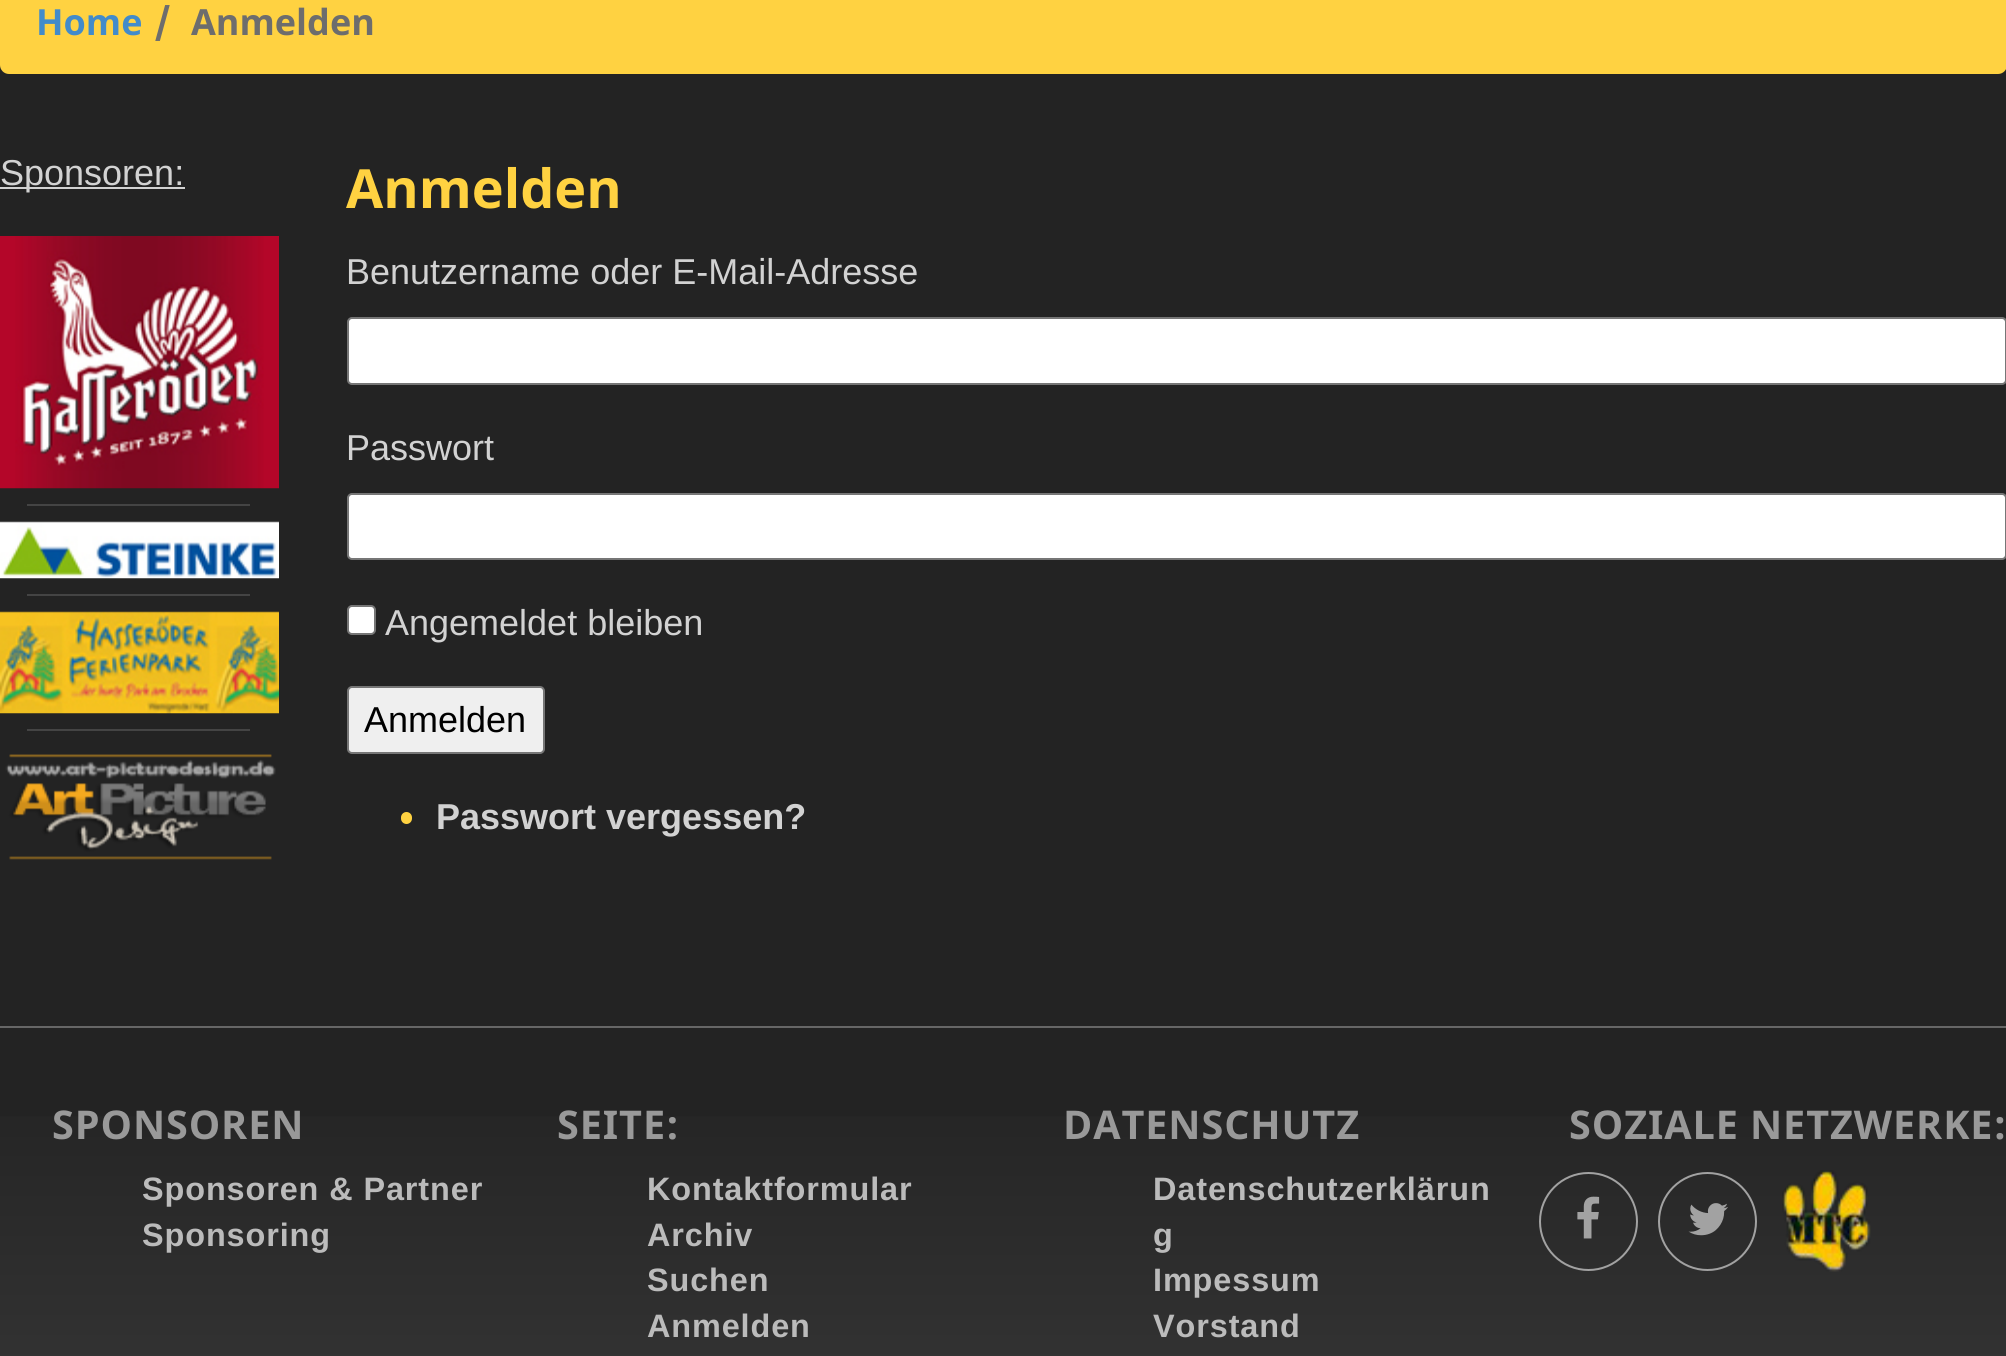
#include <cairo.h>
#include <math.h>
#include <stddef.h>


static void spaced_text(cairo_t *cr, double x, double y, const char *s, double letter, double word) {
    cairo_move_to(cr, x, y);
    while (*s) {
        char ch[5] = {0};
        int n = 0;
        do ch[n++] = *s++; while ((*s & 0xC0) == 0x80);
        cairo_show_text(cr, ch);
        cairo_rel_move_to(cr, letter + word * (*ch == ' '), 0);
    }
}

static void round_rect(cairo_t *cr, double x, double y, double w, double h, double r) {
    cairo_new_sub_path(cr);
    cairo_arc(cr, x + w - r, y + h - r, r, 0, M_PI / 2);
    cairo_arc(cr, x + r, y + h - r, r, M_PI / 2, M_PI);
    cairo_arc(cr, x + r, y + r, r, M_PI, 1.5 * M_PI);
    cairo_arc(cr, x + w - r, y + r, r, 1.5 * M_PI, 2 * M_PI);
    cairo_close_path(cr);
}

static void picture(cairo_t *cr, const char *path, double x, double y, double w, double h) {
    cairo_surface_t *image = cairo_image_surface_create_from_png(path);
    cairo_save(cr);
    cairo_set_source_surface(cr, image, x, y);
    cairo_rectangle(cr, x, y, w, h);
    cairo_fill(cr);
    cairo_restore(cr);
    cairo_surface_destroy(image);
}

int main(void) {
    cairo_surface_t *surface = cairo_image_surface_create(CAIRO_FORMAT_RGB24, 2006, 1356);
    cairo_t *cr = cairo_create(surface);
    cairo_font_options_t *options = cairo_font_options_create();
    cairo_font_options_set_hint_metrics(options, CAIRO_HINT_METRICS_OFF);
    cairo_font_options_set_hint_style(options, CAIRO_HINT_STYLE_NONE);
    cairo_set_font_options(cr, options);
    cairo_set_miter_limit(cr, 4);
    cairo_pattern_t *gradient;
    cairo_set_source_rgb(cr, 0.137, 0.137, 0.137);
    cairo_paint(cr);
    cairo_set_source_rgb(cr, 1, 0.824, 0.255);
    round_rect(cr, 0, -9, 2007, 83, 9);
    cairo_fill(cr);
    cairo_select_font_face(cr, "Noto Sans", CAIRO_FONT_SLANT_NORMAL, CAIRO_FONT_WEIGHT_BOLD);
    cairo_set_font_size(cr, 36);
    cairo_set_source_rgb(cr, 0.259, 0.545, 0.792);
    cairo_move_to(cr, 36, 35);
    cairo_show_text(cr, "Home");
    cairo_set_source_rgb(cr, 0.427, 0.427, 0.427);
    cairo_move_to(cr, 154, 35);
    cairo_show_text(cr, "/");
    cairo_move_to(cr, 191, 35);
    cairo_show_text(cr, "Anmelden");
    cairo_set_source_rgb(cr, 0.824, 0.824, 0.824);
    cairo_rectangle(cr, 0, 187, 185, 2);
    cairo_fill(cr);
    cairo_select_font_face(cr, "Liberation Sans", CAIRO_FONT_SLANT_NORMAL, CAIRO_FONT_WEIGHT_NORMAL);
    cairo_move_to(cr, 0, 185);
    cairo_show_text(cr, "Sponsoren:");
    picture(cr, "img1.png", 0, 236, 279, 253);
    cairo_set_source_rgb(cr, 0.267, 0.267, 0.267);
    cairo_rectangle(cr, 27, 504, 223, 2);
    cairo_fill(cr);
    picture(cr, "img2.png", 0, 521, 279, 58);
    cairo_rectangle(cr, 27, 594, 223, 2);
    cairo_fill(cr);
    picture(cr, "img3.png", 0, 611, 279, 103);
    cairo_rectangle(cr, 27, 729, 223, 2);
    cairo_fill(cr);
    picture(cr, "img4.png", 5, 754, 271, 106);
    cairo_select_font_face(cr, "Noto Sans", CAIRO_FONT_SLANT_NORMAL, CAIRO_FONT_WEIGHT_BOLD);
    cairo_set_font_size(cr, 54);
    cairo_set_source_rgb(cr, 1, 0.824, 0.255);
    cairo_move_to(cr, 346, 208);
    cairo_show_text(cr, "Anmelden");
    cairo_select_font_face(cr, "Liberation Sans", CAIRO_FONT_SLANT_NORMAL, CAIRO_FONT_WEIGHT_NORMAL);
    cairo_set_font_size(cr, 36);
    cairo_set_source_rgb(cr, 0.824, 0.824, 0.824);
    cairo_move_to(cr, 346, 284);
    cairo_show_text(cr, "Benutzername oder E-Mail-Adresse");
    cairo_set_source_rgb(cr, 1, 1, 1);
    round_rect(cr, 348, 318, 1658, 66, 4);
    cairo_fill_preserve(cr);
    cairo_set_source_rgb(cr, 0.463, 0.463, 0.463);
    cairo_stroke(cr);
    cairo_set_source_rgb(cr, 0.824, 0.824, 0.824);
    cairo_move_to(cr, 346, 460);
    cairo_show_text(cr, "Passwort");
    cairo_set_source_rgb(cr, 1, 1, 1);
    round_rect(cr, 348, 494, 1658, 65, 4);
    cairo_fill_preserve(cr);
    cairo_set_source_rgb(cr, 0.463, 0.463, 0.463);
    cairo_stroke(cr);
    cairo_set_source_rgb(cr, 1, 1, 1);
    round_rect(cr, 348, 606, 27, 28, 4);
    cairo_fill_preserve(cr);
    cairo_set_source_rgb(cr, 0.463, 0.463, 0.463);
    cairo_stroke(cr);
    cairo_set_source_rgb(cr, 0.824, 0.824, 0.824);
    cairo_move_to(cr, 385, 635);
    cairo_show_text(cr, "Angemeldet bleiben");
    cairo_set_source_rgb(cr, 0.937, 0.937, 0.937);
    round_rect(cr, 348, 687, 196, 66, 4);
    cairo_fill_preserve(cr);
    cairo_set_source_rgb(cr, 0.463, 0.463, 0.463);
    cairo_stroke(cr);
    cairo_set_source_rgb(cr, 0, 0, 0);
    cairo_move_to(cr, 364, 732);
    cairo_show_text(cr, "Anmelden");
    cairo_set_source_rgb(cr, 1, 0.824, 0.255);
    round_rect(cr, 401, 812, 11, 12, 5.5);
    cairo_fill(cr);
    cairo_select_font_face(cr, "Liberation Sans", CAIRO_FONT_SLANT_NORMAL, CAIRO_FONT_WEIGHT_BOLD);
    cairo_set_source_rgb(cr, 0.824, 0.824, 0.824);
    cairo_move_to(cr, 436, 829);
    cairo_show_text(cr, "Passwort vergessen?");
    cairo_set_source_rgb(cr, 0.4, 0.4, 0.4);
    cairo_rectangle(cr, 0, 1026, 2006, 2);
    cairo_fill(cr);
    gradient = cairo_pattern_create_linear(1004, 1066, 1004, 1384);
    cairo_pattern_add_color_stop_rgba(gradient, 0, 0.137, 0.137, 0.137, 1);
    cairo_pattern_add_color_stop_rgba(gradient, 1, 0.2, 0.2, 0.2, 1);
    cairo_set_source(cr, gradient);
    cairo_pattern_destroy(gradient);
    cairo_rectangle(cr, 0, 1116, 2006, 240);
    cairo_fill(cr);
    cairo_select_font_face(cr, "Noto Sans", CAIRO_FONT_SLANT_NORMAL, CAIRO_FONT_WEIGHT_BOLD);
    cairo_set_font_size(cr, 39.6);
    cairo_set_source_rgb(cr, 0.6, 0.6, 0.6);
    spaced_text(cr, 52, 1139, "SPONSOREN", 0.9, 0);
    cairo_select_font_face(cr, "Liberation Sans", CAIRO_FONT_SLANT_NORMAL, CAIRO_FONT_WEIGHT_BOLD);
    cairo_set_font_size(cr, 32.4);
    cairo_set_source_rgb(cr, 0.733, 0.733, 0.733);
    spaced_text(cr, 142, 1200, "Sponsoren & Partner", 0.9, 0);
    spaced_text(cr, 142, 1246, "Sponsoring", 0.9, 0);
    cairo_select_font_face(cr, "Noto Sans", CAIRO_FONT_SLANT_NORMAL, CAIRO_FONT_WEIGHT_BOLD);
    cairo_set_font_size(cr, 39.6);
    cairo_set_source_rgb(cr, 0.6, 0.6, 0.6);
    spaced_text(cr, 557, 1139, "SEITE:", 0.9, 0);
    cairo_select_font_face(cr, "Liberation Sans", CAIRO_FONT_SLANT_NORMAL, CAIRO_FONT_WEIGHT_BOLD);
    cairo_set_font_size(cr, 32.4);
    cairo_set_source_rgb(cr, 0.733, 0.733, 0.733);
    spaced_text(cr, 647, 1200, "Kontaktformular", 0.9, 0);
    spaced_text(cr, 647, 1246, "Archiv", 0.9, 0);
    spaced_text(cr, 647, 1291, "Suchen", 0.9, 0);
    spaced_text(cr, 647, 1337, "Anmelden", 0.9, 0);
    cairo_select_font_face(cr, "Noto Sans", CAIRO_FONT_SLANT_NORMAL, CAIRO_FONT_WEIGHT_BOLD);
    cairo_set_font_size(cr, 39.6);
    cairo_set_source_rgb(cr, 0.6, 0.6, 0.6);
    spaced_text(cr, 1063, 1139, "DATENSCHUTZ", 0.9, 0);
    cairo_select_font_face(cr, "Liberation Sans", CAIRO_FONT_SLANT_NORMAL, CAIRO_FONT_WEIGHT_BOLD);
    cairo_set_font_size(cr, 32.4);
    cairo_set_source_rgb(cr, 0.733, 0.733, 0.733);
    spaced_text(cr, 1153, 1200, "Datenschutzerklärun", 0.9, 0);
    spaced_text(cr, 1153, 1246, "g", 0.9, 0);
    spaced_text(cr, 1153, 1291, "Impessum", 0.9, 0);
    spaced_text(cr, 1153, 1337, "Vorstand", 0.9, 0);
    cairo_select_font_face(cr, "Noto Sans", CAIRO_FONT_SLANT_NORMAL, CAIRO_FONT_WEIGHT_BOLD);
    cairo_set_font_size(cr, 39.6);
    cairo_set_source_rgb(cr, 0.6, 0.6, 0.6);
    spaced_text(cr, 1569, 1139, "SOZIALE NETZWERKE:", 0.9, 0);
    cairo_new_path(cr);
    cairo_arc(cr, 1588.5, 1221.5, 48.5, 0, 2 * M_PI);
    cairo_set_source_rgb(cr, 0.635, 0.635, 0.635);
    cairo_stroke(cr);
    picture(cr, "img5.png", 1577, 1196, 23, 43);
    cairo_arc(cr, 1707.5, 1221.5, 48.5, 0, 2 * M_PI);
    cairo_stroke(cr);
    picture(cr, "img6.png", 1688, 1203, 40, 33);
    picture(cr, "img7.png", 1782, 1170, 89, 102);
    cairo_surface_write_to_png(surface, "page.png");
    cairo_font_options_destroy(options);
    cairo_destroy(cr);
    cairo_surface_destroy(surface);
    return 0;
}
